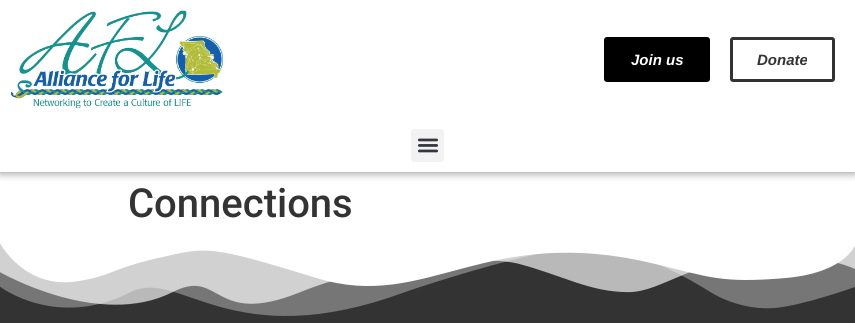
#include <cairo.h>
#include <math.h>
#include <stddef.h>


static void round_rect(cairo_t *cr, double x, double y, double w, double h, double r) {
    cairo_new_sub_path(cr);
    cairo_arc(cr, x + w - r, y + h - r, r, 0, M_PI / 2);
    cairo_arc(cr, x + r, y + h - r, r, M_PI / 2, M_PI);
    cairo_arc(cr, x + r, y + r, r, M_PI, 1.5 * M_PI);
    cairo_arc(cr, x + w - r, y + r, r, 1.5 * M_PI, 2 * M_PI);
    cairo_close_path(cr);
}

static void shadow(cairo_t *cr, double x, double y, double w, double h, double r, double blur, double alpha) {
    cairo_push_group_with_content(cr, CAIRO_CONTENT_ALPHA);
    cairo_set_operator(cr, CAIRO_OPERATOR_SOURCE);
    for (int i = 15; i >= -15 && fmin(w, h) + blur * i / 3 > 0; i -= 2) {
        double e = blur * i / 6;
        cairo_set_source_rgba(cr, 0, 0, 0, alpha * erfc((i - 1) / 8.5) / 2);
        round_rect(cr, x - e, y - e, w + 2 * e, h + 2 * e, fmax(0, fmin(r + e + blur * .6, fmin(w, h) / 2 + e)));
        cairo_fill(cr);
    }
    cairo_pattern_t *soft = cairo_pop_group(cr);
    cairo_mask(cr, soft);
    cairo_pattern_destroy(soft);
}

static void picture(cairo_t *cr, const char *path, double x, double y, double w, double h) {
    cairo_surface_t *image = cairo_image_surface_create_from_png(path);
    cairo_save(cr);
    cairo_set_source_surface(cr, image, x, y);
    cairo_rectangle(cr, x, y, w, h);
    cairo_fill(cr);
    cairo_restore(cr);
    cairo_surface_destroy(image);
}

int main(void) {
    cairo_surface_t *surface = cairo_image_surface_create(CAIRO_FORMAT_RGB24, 855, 323);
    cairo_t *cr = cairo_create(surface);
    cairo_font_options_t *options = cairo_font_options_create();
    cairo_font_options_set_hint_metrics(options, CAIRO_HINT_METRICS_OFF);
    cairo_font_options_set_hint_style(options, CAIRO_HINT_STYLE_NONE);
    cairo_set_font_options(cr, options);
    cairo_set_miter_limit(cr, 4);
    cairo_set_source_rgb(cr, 1, 1, 1);
    cairo_paint(cr);
    cairo_save(cr);
    cairo_rectangle(cr, 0, 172, 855, 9);
    cairo_clip(cr);
    cairo_set_source_rgb(cr, 0, 0, 0);
    shadow(cr, 0, 0, 855, 172, 0, 5, 0.5);
    cairo_restore(cr);
    picture(cr, "img1.png", 11, 10, 212, 99);
    cairo_set_source_rgb(cr, 0, 0, 0);
    round_rect(cr, 605.5, 38.5, 103, 42, 1.5);
    cairo_fill_preserve(cr);
    cairo_set_line_width(cr, 3);
    cairo_stroke(cr);
    cairo_select_font_face(cr, "Liberation Sans", CAIRO_FONT_SLANT_ITALIC, CAIRO_FONT_WEIGHT_BOLD);
    cairo_set_font_size(cr, 15);
    cairo_set_source_rgb(cr, 1, 1, 1);
    cairo_move_to(cr, 631, 65);
    cairo_show_text(cr, "Join us");
    round_rect(cr, 731.5, 38.5, 102, 42, 1.5);
    cairo_set_source_rgb(cr, 0.2, 0.2, 0.2);
    cairo_stroke(cr);
    cairo_move_to(cr, 757, 65);
    cairo_show_text(cr, "Donate");
    cairo_set_source_rgb(cr, 0.949, 0.949, 0.949);
    round_rect(cr, 411, 129, 33, 33, 3);
    cairo_fill(cr);
    picture(cr, "img2.png", 417, 138, 22, 15);
    cairo_select_font_face(cr, "Roboto Medium", CAIRO_FONT_SLANT_NORMAL, CAIRO_FONT_WEIGHT_NORMAL);
    cairo_set_font_size(cr, 40);
    cairo_set_source_rgb(cr, 0.2, 0.2, 0.2);
    cairo_move_to(cr, 128, 217);
    cairo_show_text(cr, "Connections");
    cairo_rectangle(cr, 0, 244, 855, 79);
    cairo_fill(cr);
    picture(cr, "img3.png", 0, 244, 855, 72);
    cairo_surface_write_to_png(surface, "page.png");
    cairo_font_options_destroy(options);
    cairo_destroy(cr);
    cairo_surface_destroy(surface);
    return 0;
}
